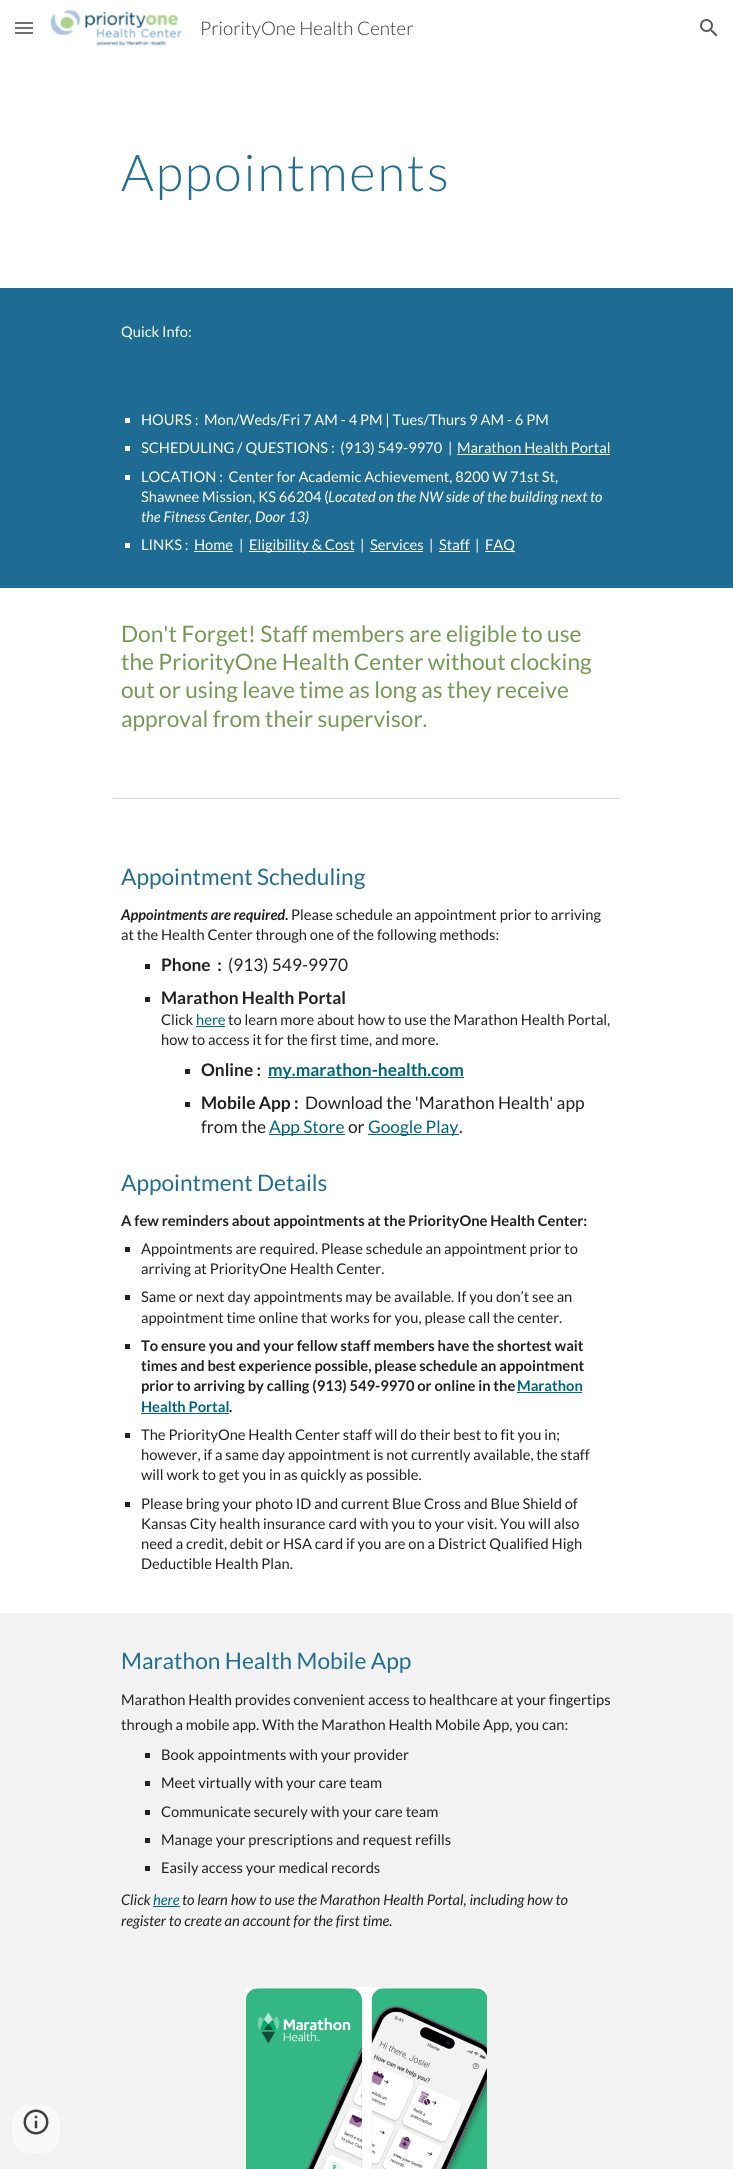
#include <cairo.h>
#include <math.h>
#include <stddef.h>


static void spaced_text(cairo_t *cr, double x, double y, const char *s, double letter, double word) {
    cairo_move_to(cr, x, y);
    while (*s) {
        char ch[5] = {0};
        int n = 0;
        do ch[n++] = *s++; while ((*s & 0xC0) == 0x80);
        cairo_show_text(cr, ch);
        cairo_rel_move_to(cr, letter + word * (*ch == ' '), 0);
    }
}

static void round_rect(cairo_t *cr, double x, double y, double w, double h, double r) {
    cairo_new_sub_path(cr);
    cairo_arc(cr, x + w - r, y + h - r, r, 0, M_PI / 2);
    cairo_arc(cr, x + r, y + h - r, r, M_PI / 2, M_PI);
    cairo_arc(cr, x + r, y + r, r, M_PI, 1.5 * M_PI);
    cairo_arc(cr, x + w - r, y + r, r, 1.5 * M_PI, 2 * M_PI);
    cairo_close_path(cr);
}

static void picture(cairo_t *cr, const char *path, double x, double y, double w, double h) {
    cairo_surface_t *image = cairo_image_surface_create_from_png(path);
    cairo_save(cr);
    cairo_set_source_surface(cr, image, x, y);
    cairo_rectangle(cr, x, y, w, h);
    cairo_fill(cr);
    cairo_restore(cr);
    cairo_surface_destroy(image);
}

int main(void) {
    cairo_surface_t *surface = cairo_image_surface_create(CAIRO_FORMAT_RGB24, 733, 2169);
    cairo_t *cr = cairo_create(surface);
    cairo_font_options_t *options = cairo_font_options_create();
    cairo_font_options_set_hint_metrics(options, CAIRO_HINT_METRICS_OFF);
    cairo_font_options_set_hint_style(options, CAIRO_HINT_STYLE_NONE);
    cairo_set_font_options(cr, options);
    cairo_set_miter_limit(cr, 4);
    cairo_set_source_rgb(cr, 1, 1, 1);
    cairo_paint(cr);
    cairo_set_source_rgb(cr, 0.439, 0.439, 0.439);
    cairo_rectangle(cr, 15, 22, 18, 2);
    cairo_fill(cr);
    cairo_rectangle(cr, 15, 27, 18, 2);
    cairo_fill(cr);
    cairo_rectangle(cr, 15, 32, 18, 2);
    cairo_fill(cr);
    picture(cr, "img1.png", 50, 9, 132, 38);
    cairo_select_font_face(cr, "Lato Light", CAIRO_FONT_SLANT_NORMAL, CAIRO_FONT_WEIGHT_NORMAL);
    cairo_set_font_size(cr, 18.75);
    cairo_set_source_rgb(cr, 0.2, 0.2, 0.2);
    cairo_move_to(cr, 200, 35);
    cairo_show_text(cr, "PriorityOne Health Center");
    picture(cr, "img2.png", 700, 19, 18, 18);
    cairo_set_font_size(cr, 50.75);
    cairo_set_source_rgb(cr, 0.133, 0.431, 0.576);
    spaced_text(cr, 121, 191, "Appointments", 2, 0);
    cairo_set_source_rgb(cr, 0.118, 0.424, 0.576);
    cairo_rectangle(cr, 0, 288, 733, 300);
    cairo_fill(cr);
    cairo_select_font_face(cr, "Lato", CAIRO_FONT_SLANT_NORMAL, CAIRO_FONT_WEIGHT_NORMAL);
    cairo_set_font_size(cr, 14.7);
    cairo_set_source_rgb(cr, 1, 1, 1);
    cairo_move_to(cr, 121, 337);
    cairo_show_text(cr, "Quick Info:");
    cairo_rectangle(cr, 125, 418, 5, 5);
    cairo_fill(cr);
    cairo_move_to(cr, 141, 425);
    cairo_show_text(cr, "HOURS :  Mon/Weds/Fri 7 AM - 4 PM | Tues/Thurs 9 AM - 6 PM");
    cairo_rectangle(cr, 125, 446, 5, 5);
    cairo_fill(cr);
    cairo_move_to(cr, 141, 453);
    cairo_show_text(cr, "SCHEDULING / QUESTIONS :  (913) 549-9970  |");
    cairo_move_to(cr, 457, 453);
    cairo_show_text(cr, "Marathon Health Portal");
    cairo_rectangle(cr, 457, 454, 153, 1);
    cairo_fill(cr);
    cairo_rectangle(cr, 125, 475, 5, 5);
    cairo_fill(cr);
    cairo_move_to(cr, 141, 482);
    cairo_show_text(cr, "LOCATION :  Center for Academic Achievement, 8200 W 71st St,");
    cairo_move_to(cr, 141, 502);
    cairo_show_text(cr, "Shawnee Mission, KS 66204 (");
    cairo_select_font_face(cr, "Lato", CAIRO_FONT_SLANT_ITALIC, CAIRO_FONT_WEIGHT_NORMAL);
    cairo_move_to(cr, 328, 502);
    cairo_show_text(cr, "Located on the NW side of the building next to");
    cairo_move_to(cr, 141, 522);
    cairo_show_text(cr, "the Fitness Center, Door 13)");
    cairo_rectangle(cr, 125, 543, 5, 5);
    cairo_fill(cr);
    cairo_select_font_face(cr, "Lato", CAIRO_FONT_SLANT_NORMAL, CAIRO_FONT_WEIGHT_NORMAL);
    cairo_move_to(cr, 141, 550);
    cairo_show_text(cr, "LINKS :");
    cairo_move_to(cr, 194, 550);
    cairo_show_text(cr, "Home");
    cairo_rectangle(cr, 194, 551, 39, 1);
    cairo_fill(cr);
    cairo_move_to(cr, 239, 550);
    cairo_show_text(cr, "|");
    cairo_rectangle(cr, 249, 551, 105, 1);
    cairo_fill(cr);
    cairo_move_to(cr, 249, 550);
    cairo_show_text(cr, "Eligibility & Cost");
    cairo_move_to(cr, 360, 550);
    cairo_show_text(cr, "|");
    cairo_move_to(cr, 370, 550);
    cairo_show_text(cr, "Services");
    cairo_rectangle(cr, 370, 551, 53, 1);
    cairo_fill(cr);
    cairo_move_to(cr, 429, 550);
    cairo_show_text(cr, "|");
    cairo_move_to(cr, 439, 550);
    cairo_show_text(cr, "Staff");
    cairo_rectangle(cr, 439, 551, 31, 1);
    cairo_fill(cr);
    cairo_move_to(cr, 475, 550);
    cairo_show_text(cr, "|");
    cairo_rectangle(cr, 485, 551, 30, 1);
    cairo_fill(cr);
    cairo_move_to(cr, 485, 550);
    cairo_show_text(cr, "FAQ");
    cairo_set_font_size(cr, 22.7);
    cairo_set_source_rgb(cr, 0.459, 0.6, 0.333);
    cairo_move_to(cr, 121, 642);
    cairo_show_text(cr, "Don't Forget! Staff members are eligible to use");
    cairo_move_to(cr, 121, 670);
    cairo_show_text(cr, "the PriorityOne Health Center without clocking");
    cairo_move_to(cr, 121, 698);
    cairo_show_text(cr, "out or using leave time as long as they receive");
    cairo_move_to(cr, 121, 727);
    cairo_show_text(cr, "approval from their supervisor.");
    cairo_set_source_rgb(cr, 0.851, 0.851, 0.851);
    cairo_rectangle(cr, 113, 798, 507, 1);
    cairo_fill(cr);
    cairo_set_source_rgb(cr, 0.133, 0.431, 0.576);
    cairo_move_to(cr, 121, 885);
    cairo_show_text(cr, "Appointment Scheduling");
    cairo_select_font_face(cr, "Lato", CAIRO_FONT_SLANT_ITALIC, CAIRO_FONT_WEIGHT_BOLD);
    cairo_set_font_size(cr, 14.7);
    cairo_set_source_rgb(cr, 0.129, 0.129, 0.129);
    cairo_move_to(cr, 121, 920);
    cairo_show_text(cr, "Appointments are required.");
    cairo_select_font_face(cr, "Lato", CAIRO_FONT_SLANT_NORMAL, CAIRO_FONT_WEIGHT_NORMAL);
    cairo_move_to(cr, 291, 920);
    cairo_show_text(cr, "Please schedule an appointment prior to arriving");
    cairo_move_to(cr, 121, 940);
    cairo_show_text(cr, "at the Health Center through one of the following methods:");
    cairo_rectangle(cr, 145, 964, 5, 5);
    cairo_fill(cr);
    cairo_select_font_face(cr, "Lato", CAIRO_FONT_SLANT_NORMAL, CAIRO_FONT_WEIGHT_BOLD);
    cairo_set_font_size(cr, 17.3);
    cairo_move_to(cr, 161, 971);
    cairo_show_text(cr, "Phone  :");
    cairo_select_font_face(cr, "Lato", CAIRO_FONT_SLANT_NORMAL, CAIRO_FONT_WEIGHT_NORMAL);
    cairo_move_to(cr, 228, 971);
    cairo_show_text(cr, "(913) 549-9970");
    cairo_rectangle(cr, 145, 997, 5, 5);
    cairo_fill(cr);
    cairo_select_font_face(cr, "Lato", CAIRO_FONT_SLANT_NORMAL, CAIRO_FONT_WEIGHT_BOLD);
    cairo_move_to(cr, 161, 1004);
    cairo_show_text(cr, "Marathon Health Portal");
    cairo_select_font_face(cr, "Lato", CAIRO_FONT_SLANT_NORMAL, CAIRO_FONT_WEIGHT_NORMAL);
    cairo_set_font_size(cr, 14.7);
    cairo_move_to(cr, 161, 1025);
    cairo_show_text(cr, "Click");
    cairo_set_source_rgb(cr, 0, 0.396, 0.502);
    cairo_move_to(cr, 196, 1025);
    cairo_show_text(cr, "here");
    cairo_rectangle(cr, 196, 1026, 29, 1);
    cairo_fill(cr);
    cairo_set_source_rgb(cr, 0.129, 0.129, 0.129);
    cairo_move_to(cr, 228, 1025);
    cairo_show_text(cr, "to learn more about how to use the Marathon Health Portal,");
    cairo_move_to(cr, 161, 1045);
    cairo_show_text(cr, "how to access it for the first time, and more.");
    cairo_rectangle(cr, 185, 1069, 5, 5);
    cairo_fill(cr);
    cairo_select_font_face(cr, "Lato", CAIRO_FONT_SLANT_NORMAL, CAIRO_FONT_WEIGHT_BOLD);
    cairo_set_font_size(cr, 17.3);
    cairo_move_to(cr, 201, 1076);
    cairo_show_text(cr, "Online :");
    cairo_set_source_rgb(cr, 0, 0.396, 0.502);
    cairo_rectangle(cr, 268, 1077, 196, 1);
    cairo_fill(cr);
    cairo_move_to(cr, 268, 1076);
    cairo_show_text(cr, "my.marathon-health.com");
    cairo_set_source_rgb(cr, 0.129, 0.129, 0.129);
    cairo_rectangle(cr, 185, 1102, 5, 5);
    cairo_fill(cr);
    cairo_move_to(cr, 201, 1109);
    cairo_show_text(cr, "Mobile App :");
    cairo_select_font_face(cr, "Lato", CAIRO_FONT_SLANT_NORMAL, CAIRO_FONT_WEIGHT_NORMAL);
    cairo_move_to(cr, 305, 1109);
    cairo_show_text(cr, "Download the 'Marathon Health' app");
    cairo_move_to(cr, 201, 1133);
    cairo_show_text(cr, "from the");
    cairo_set_source_rgb(cr, 0, 0.396, 0.502);
    cairo_rectangle(cr, 269, 1134, 76, 1);
    cairo_fill(cr);
    cairo_move_to(cr, 269, 1133);
    cairo_show_text(cr, "App Store");
    cairo_set_source_rgb(cr, 0.129, 0.129, 0.129);
    cairo_move_to(cr, 348, 1133);
    cairo_show_text(cr, "or");
    cairo_set_source_rgb(cr, 0, 0.396, 0.502);
    cairo_rectangle(cr, 368, 1134, 91, 1);
    cairo_fill(cr);
    cairo_move_to(cr, 368, 1133);
    cairo_show_text(cr, "Google Play");
    cairo_set_source_rgb(cr, 0.129, 0.129, 0.129);
    cairo_move_to(cr, 459, 1133);
    cairo_show_text(cr, ".");
    cairo_set_font_size(cr, 22.7);
    cairo_set_source_rgb(cr, 0.133, 0.431, 0.576);
    cairo_move_to(cr, 121, 1191);
    cairo_show_text(cr, "Appointment Details");
    cairo_select_font_face(cr, "Lato", CAIRO_FONT_SLANT_NORMAL, CAIRO_FONT_WEIGHT_BOLD);
    cairo_set_font_size(cr, 14.7);
    cairo_set_source_rgb(cr, 0.129, 0.129, 0.129);
    cairo_move_to(cr, 121, 1226);
    cairo_show_text(cr, "A few reminders about appointments at the PriorityOne Health Center:");
    cairo_rectangle(cr, 125, 1247, 5, 5);
    cairo_fill(cr);
    cairo_select_font_face(cr, "Lato", CAIRO_FONT_SLANT_NORMAL, CAIRO_FONT_WEIGHT_NORMAL);
    cairo_move_to(cr, 141, 1254);
    cairo_show_text(cr, "Appointments are required. Please schedule an appointment prior to");
    cairo_move_to(cr, 141, 1274);
    cairo_show_text(cr, "arriving at PriorityOne Health Center.");
    cairo_rectangle(cr, 125, 1295, 5, 5);
    cairo_fill(cr);
    cairo_move_to(cr, 141, 1302);
    cairo_show_text(cr, "Same or next day appointments may be available. If you don’t see an");
    cairo_move_to(cr, 141, 1323);
    cairo_show_text(cr, "appointment time online that works for you, please call the center.");
    cairo_rectangle(cr, 125, 1344, 5, 5);
    cairo_fill(cr);
    cairo_select_font_face(cr, "Lato", CAIRO_FONT_SLANT_NORMAL, CAIRO_FONT_WEIGHT_BOLD);
    cairo_move_to(cr, 141, 1351);
    cairo_show_text(cr, "To ensure you and your fellow staff members have the shortest wait");
    cairo_move_to(cr, 141, 1371);
    cairo_show_text(cr, "times and best experience possible, please schedule an appointment");
    cairo_move_to(cr, 141, 1391);
    cairo_show_text(cr, "prior to arriving by calling (913) 549-9970 or online in the");
    cairo_set_source_rgb(cr, 0, 0.396, 0.502);
    cairo_move_to(cr, 517, 1391);
    cairo_show_text(cr, "Marathon");
    cairo_rectangle(cr, 517, 1392, 65, 1);
    cairo_fill(cr);
    cairo_move_to(cr, 141, 1412);
    cairo_show_text(cr, "Health Portal");
    cairo_rectangle(cr, 141, 1413, 88, 1);
    cairo_fill(cr);
    cairo_set_source_rgb(cr, 0.129, 0.129, 0.129);
    cairo_move_to(cr, 229, 1412);
    cairo_show_text(cr, ".");
    cairo_rectangle(cr, 125, 1433, 5, 5);
    cairo_fill(cr);
    cairo_select_font_face(cr, "Lato", CAIRO_FONT_SLANT_NORMAL, CAIRO_FONT_WEIGHT_NORMAL);
    cairo_move_to(cr, 141, 1440);
    cairo_show_text(cr, "The PriorityOne Health Center staff will do their best to fit you in;");
    cairo_move_to(cr, 141, 1460);
    cairo_show_text(cr, "however, if a same day appointment is not currently available, the staff");
    cairo_move_to(cr, 141, 1480);
    cairo_show_text(cr, "will work to get you in as quickly as possible.");
    cairo_rectangle(cr, 125, 1502, 5, 5);
    cairo_fill(cr);
    cairo_move_to(cr, 141, 1509);
    cairo_show_text(cr, "Please bring your photo ID and current Blue Cross and Blue Shield of");
    cairo_move_to(cr, 141, 1529);
    cairo_show_text(cr, "Kansas City health insurance card with you to your visit. You will also");
    cairo_move_to(cr, 141, 1549);
    cairo_show_text(cr, "need a credit, debit or HSA card if you are on a District Qualified High");
    cairo_move_to(cr, 141, 1569);
    cairo_show_text(cr, "Deductible Health Plan.");
    cairo_set_source_rgb(cr, 0.949, 0.949, 0.949);
    cairo_rectangle(cr, 0, 1613, 733, 556);
    cairo_fill(cr);
    cairo_set_font_size(cr, 22.7);
    cairo_set_source_rgb(cr, 0.133, 0.431, 0.576);
    cairo_move_to(cr, 121, 1669);
    cairo_show_text(cr, "Marathon Health Mobile App");
    cairo_set_font_size(cr, 14.7);
    cairo_set_source_rgb(cr, 0.129, 0.129, 0.129);
    cairo_move_to(cr, 121, 1705);
    cairo_show_text(cr, "Marathon Health provides convenient access to healthcare at your fingertips");
    cairo_move_to(cr, 121, 1730);
    cairo_show_text(cr, "through a mobile app. With the Marathon Health Mobile App, you can:");
    cairo_rectangle(cr, 145, 1753, 5, 5);
    cairo_fill(cr);
    cairo_move_to(cr, 161, 1760);
    cairo_show_text(cr, "Book appointments with your provider");
    cairo_rectangle(cr, 145, 1781, 5, 5);
    cairo_fill(cr);
    cairo_move_to(cr, 161, 1788);
    cairo_show_text(cr, "Meet virtually with your care team");
    cairo_rectangle(cr, 145, 1810, 5, 5);
    cairo_fill(cr);
    cairo_move_to(cr, 161, 1817);
    cairo_show_text(cr, "Communicate securely with your care team");
    cairo_rectangle(cr, 145, 1838, 5, 5);
    cairo_fill(cr);
    cairo_move_to(cr, 161, 1845);
    cairo_show_text(cr, "Manage your prescriptions and request refills");
    cairo_rectangle(cr, 145, 1866, 5, 5);
    cairo_fill(cr);
    cairo_move_to(cr, 161, 1873);
    cairo_show_text(cr, "Easily access your medical records");
    cairo_select_font_face(cr, "Lato", CAIRO_FONT_SLANT_ITALIC, CAIRO_FONT_WEIGHT_NORMAL);
    cairo_move_to(cr, 121, 1905);
    cairo_show_text(cr, "Click");
    cairo_set_source_rgb(cr, 0, 0.396, 0.502);
    cairo_move_to(cr, 153, 1905);
    cairo_show_text(cr, "here");
    cairo_rectangle(cr, 153, 1906, 27, 1);
    cairo_fill(cr);
    cairo_set_source_rgb(cr, 0.129, 0.129, 0.129);
    cairo_move_to(cr, 182, 1905);
    cairo_show_text(cr, "to learn how to use the Marathon Health Portal, including how to");
    cairo_move_to(cr, 121, 1926);
    cairo_show_text(cr, "register to create an account for the first time.");
    picture(cr, "img3.png", 246, 1987, 241, 182);
    cairo_set_source_rgb(cr, 0.976, 0.976, 0.976);
    round_rect(cr, 12, 2105, 48, 48, 17);
    cairo_fill(cr);
    picture(cr, "img4.png", 23, 2109, 26, 26);
    cairo_surface_write_to_png(surface, "page.png");
    cairo_font_options_destroy(options);
    cairo_destroy(cr);
    cairo_surface_destroy(surface);
    return 0;
}
